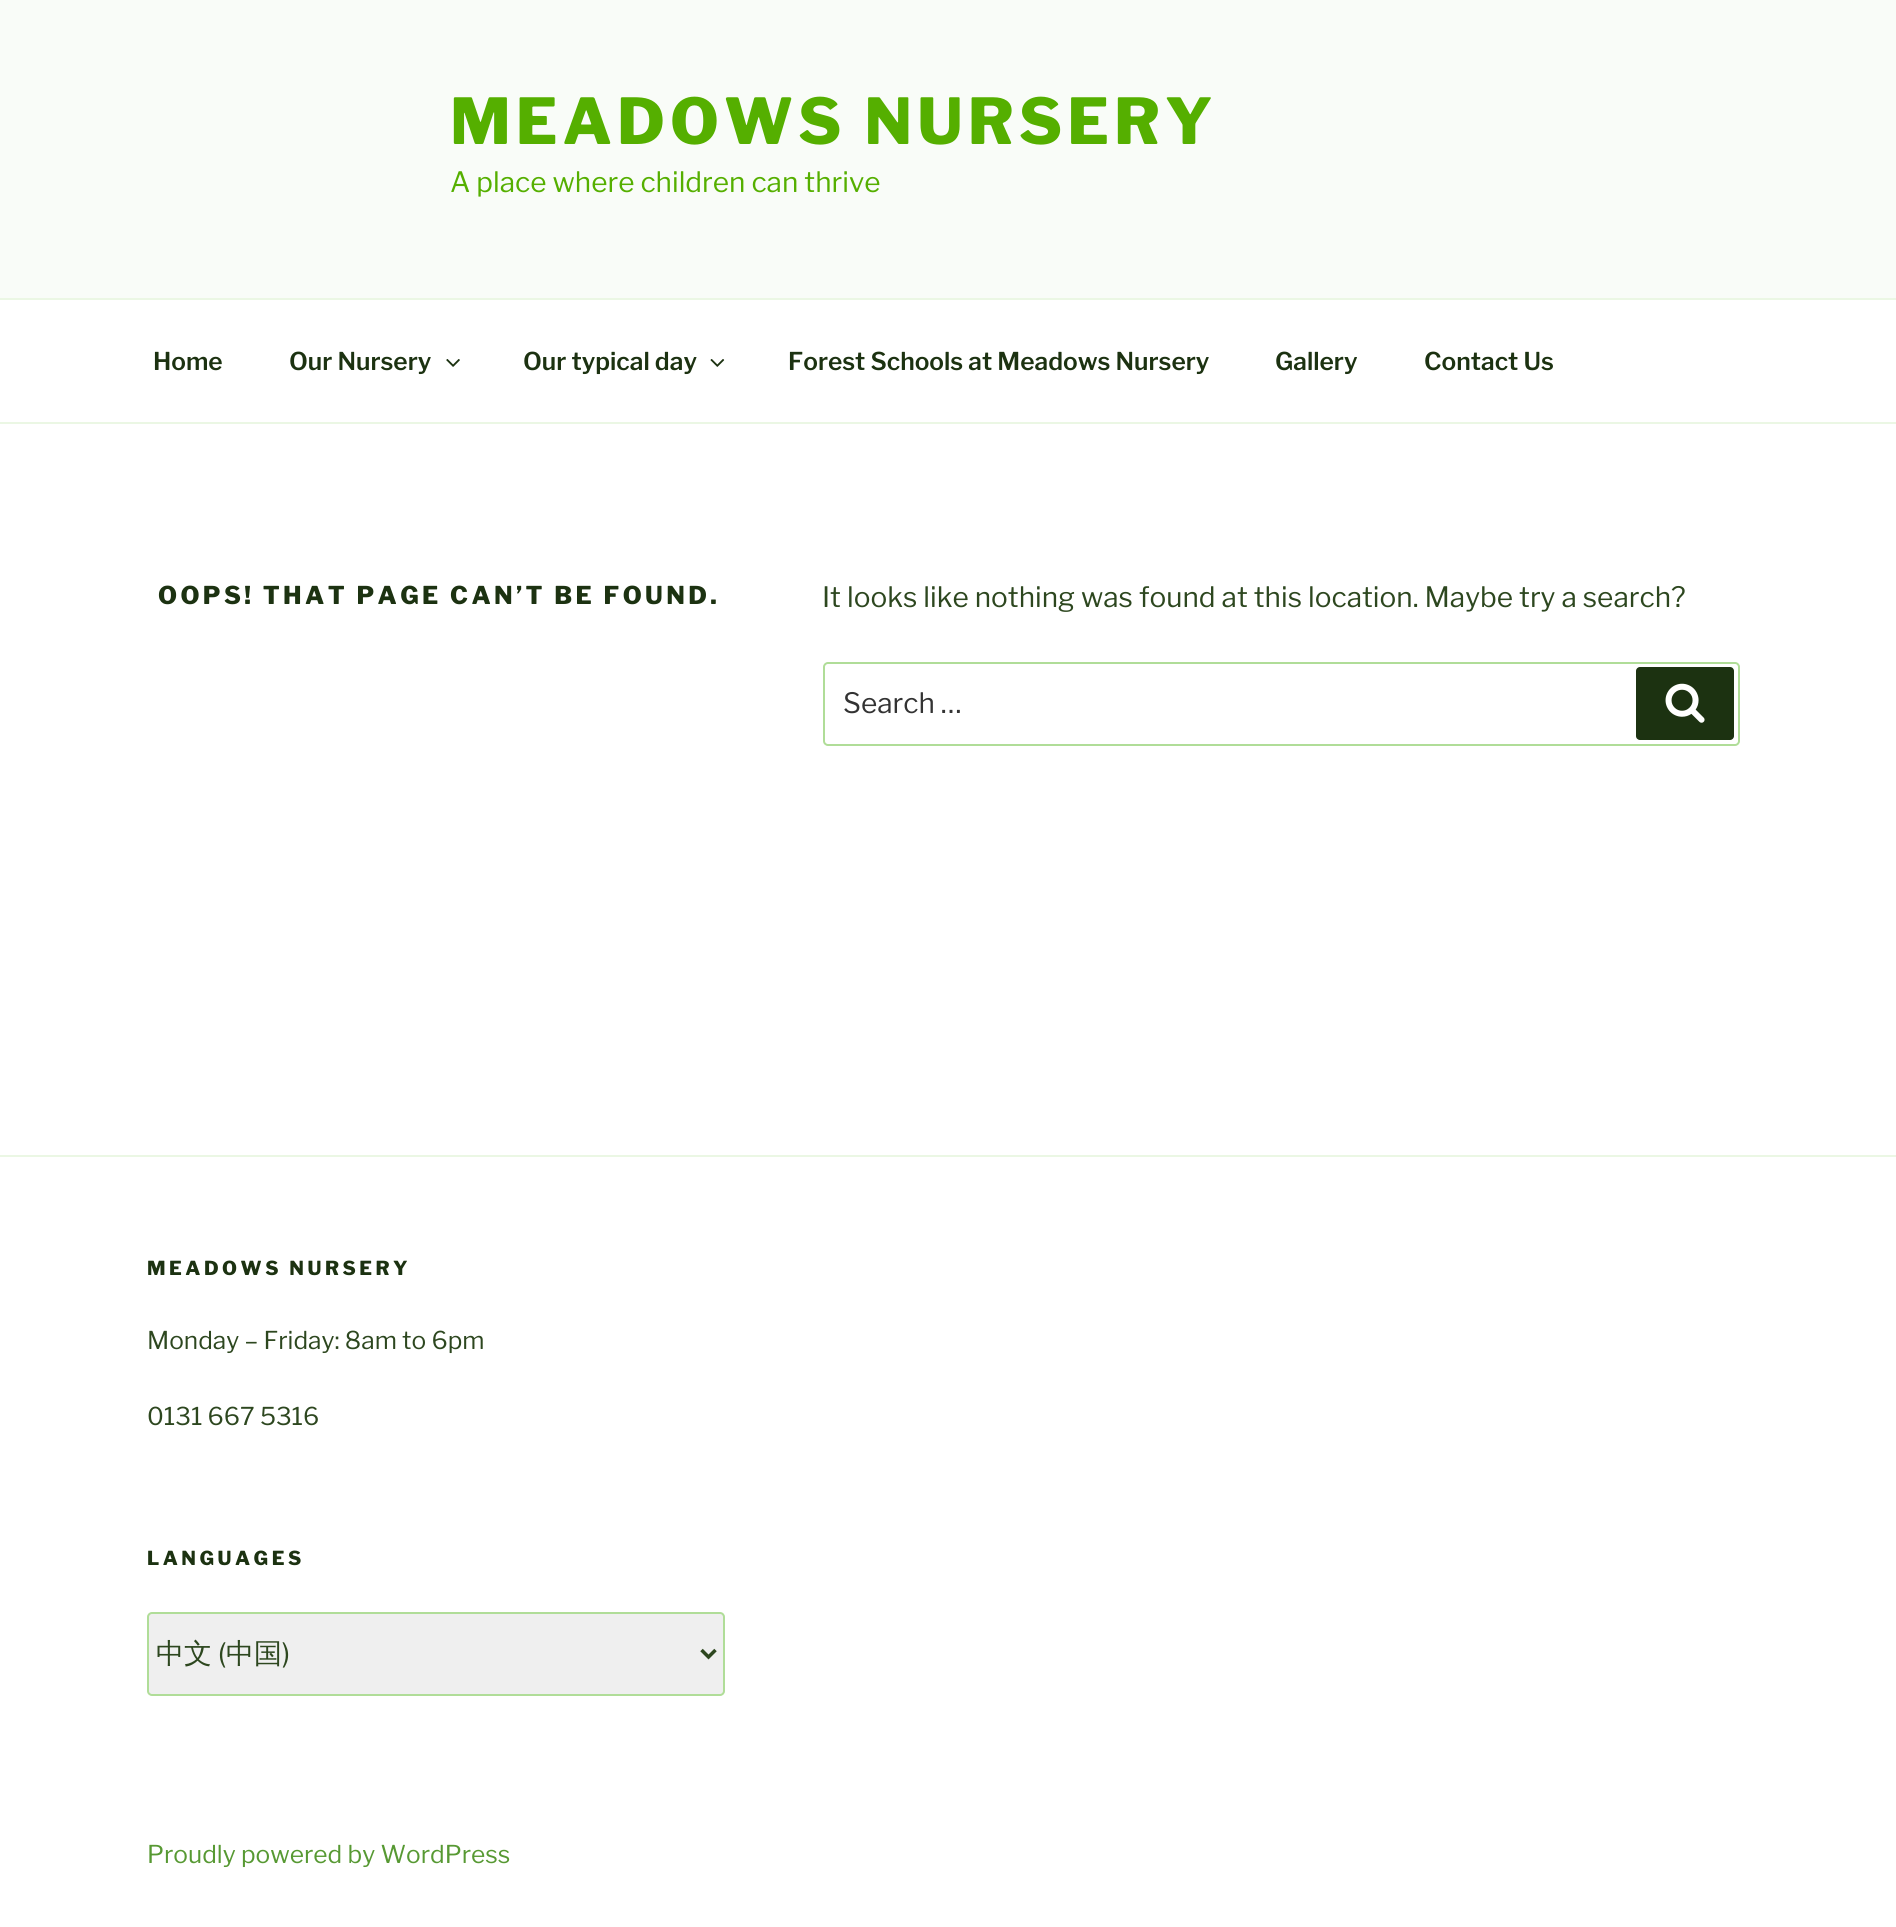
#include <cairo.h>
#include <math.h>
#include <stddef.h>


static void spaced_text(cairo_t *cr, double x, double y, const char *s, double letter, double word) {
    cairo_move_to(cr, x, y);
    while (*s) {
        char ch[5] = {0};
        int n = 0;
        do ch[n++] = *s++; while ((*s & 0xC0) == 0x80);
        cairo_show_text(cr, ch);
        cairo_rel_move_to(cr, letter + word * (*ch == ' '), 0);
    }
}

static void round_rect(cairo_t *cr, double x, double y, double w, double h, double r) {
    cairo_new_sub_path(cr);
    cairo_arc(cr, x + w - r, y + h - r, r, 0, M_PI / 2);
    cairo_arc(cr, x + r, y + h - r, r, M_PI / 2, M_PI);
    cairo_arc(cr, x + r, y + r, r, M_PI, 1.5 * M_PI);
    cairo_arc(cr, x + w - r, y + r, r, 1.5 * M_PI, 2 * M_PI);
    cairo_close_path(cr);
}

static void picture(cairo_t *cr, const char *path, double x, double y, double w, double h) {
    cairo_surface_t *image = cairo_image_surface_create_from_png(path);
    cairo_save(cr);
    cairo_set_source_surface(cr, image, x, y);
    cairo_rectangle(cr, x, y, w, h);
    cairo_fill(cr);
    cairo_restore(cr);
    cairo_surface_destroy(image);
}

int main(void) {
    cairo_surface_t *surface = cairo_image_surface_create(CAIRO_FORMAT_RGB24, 1896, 1927);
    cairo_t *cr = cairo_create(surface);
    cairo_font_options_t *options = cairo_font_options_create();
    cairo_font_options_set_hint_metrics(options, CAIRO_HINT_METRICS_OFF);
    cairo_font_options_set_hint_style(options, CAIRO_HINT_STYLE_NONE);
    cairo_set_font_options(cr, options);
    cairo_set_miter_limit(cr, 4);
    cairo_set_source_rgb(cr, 1, 1, 1);
    cairo_paint(cr);
    cairo_set_source_rgb(cr, 0.976, 0.988, 0.969);
    cairo_rectangle(cr, 0, 0, 1896, 298);
    cairo_fill(cr);
    cairo_select_font_face(cr, "Libre Franklin Thin", CAIRO_FONT_SLANT_NORMAL, CAIRO_FONT_WEIGHT_NORMAL);
    cairo_set_font_size(cr, 63);
    cairo_set_source_rgb(cr, 0.333, 0.686, 0);
    spaced_text(cr, 450, 144, "MEADOWS NURSERY", 5, 0);
    cairo_select_font_face(cr, "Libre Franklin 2 Thin", CAIRO_FONT_SLANT_NORMAL, CAIRO_FONT_WEIGHT_NORMAL);
    cairo_set_font_size(cr, 28);
    cairo_move_to(cr, 450, 192);
    cairo_show_text(cr, "A place where children can thrive");
    cairo_set_source_rgb(cr, 0.918, 0.965, 0.894);
    cairo_rectangle(cr, 0, 298, 1896, 2);
    cairo_fill(cr);
    cairo_rectangle(cr, 0, 422, 1896, 2);
    cairo_fill(cr);
    cairo_select_font_face(cr, "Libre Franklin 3 Thin", CAIRO_FONT_SLANT_NORMAL, CAIRO_FONT_WEIGHT_NORMAL);
    cairo_set_font_size(cr, 24.5);
    cairo_set_source_rgb(cr, 0.11, 0.196, 0.067);
    cairo_move_to(cr, 153, 370);
    cairo_show_text(cr, "Home");
    cairo_move_to(cr, 289, 370);
    cairo_show_text(cr, "Our Nursery");
    picture(cr, "img1.png", 446, 359, 14, 8);
    cairo_move_to(cr, 523, 370);
    cairo_show_text(cr, "Our typical day");
    picture(cr, "img2.png", 710, 359, 15, 8);
    cairo_move_to(cr, 788, 370);
    cairo_show_text(cr, "Forest Schools at Meadows Nursery");
    cairo_move_to(cr, 1275, 370);
    cairo_show_text(cr, "Gallery");
    cairo_move_to(cr, 1424, 370);
    cairo_show_text(cr, "Contact Us");
    cairo_select_font_face(cr, "Libre Franklin Thin", CAIRO_FONT_SLANT_NORMAL, CAIRO_FONT_WEIGHT_NORMAL);
    spaced_text(cr, 158, 604, "OOPS! THAT PAGE CAN’T BE FOUND.", 3.4, 0);
    cairo_select_font_face(cr, "Libre Franklin 2 Thin", CAIRO_FONT_SLANT_NORMAL, CAIRO_FONT_WEIGHT_NORMAL);
    cairo_set_font_size(cr, 28);
    cairo_set_source_rgb(cr, 0.176, 0.278, 0.122);
    cairo_move_to(cr, 822, 607);
    cairo_show_text(cr, "It looks like nothing was found at this location. Maybe try a search?");
    round_rect(cr, 824, 663, 915, 82, 4);
    cairo_set_source_rgb(cr, 0.69, 0.867, 0.596);
    cairo_stroke(cr);
    cairo_set_source_rgb(cr, 0.2, 0.2, 0.2);
    cairo_move_to(cr, 843, 713);
    cairo_show_text(cr, "Search …");
    cairo_set_source_rgb(cr, 0.11, 0.196, 0.067);
    round_rect(cr, 1636, 667, 98, 73, 4);
    cairo_fill(cr);
    picture(cr, "img3.png", 1665, 683, 40, 40);
    cairo_set_source_rgb(cr, 0.918, 0.965, 0.894);
    cairo_rectangle(cr, 0, 1155, 1896, 2);
    cairo_fill(cr);
    cairo_select_font_face(cr, "Libre Franklin Thin", CAIRO_FONT_SLANT_NORMAL, CAIRO_FONT_WEIGHT_NORMAL);
    cairo_set_font_size(cr, 19.25);
    cairo_set_source_rgb(cr, 0.11, 0.196, 0.067);
    spaced_text(cr, 147, 1275, "MEADOWS NURSERY", 3.5, 0);
    cairo_select_font_face(cr, "Libre Franklin 2 Thin", CAIRO_FONT_SLANT_NORMAL, CAIRO_FONT_WEIGHT_NORMAL);
    cairo_set_font_size(cr, 24.5);
    cairo_set_source_rgb(cr, 0.176, 0.278, 0.122);
    cairo_move_to(cr, 147, 1349);
    cairo_show_text(cr, "Monday – Friday: 8am to 6pm");
    cairo_move_to(cr, 147, 1425);
    cairo_show_text(cr, "0131 667 5316");
    cairo_select_font_face(cr, "Libre Franklin Thin", CAIRO_FONT_SLANT_NORMAL, CAIRO_FONT_WEIGHT_NORMAL);
    cairo_set_font_size(cr, 19.25);
    cairo_set_source_rgb(cr, 0.11, 0.196, 0.067);
    spaced_text(cr, 147, 1565, "LANGUAGES", 3.5, 0);
    cairo_set_source_rgb(cr, 0.937, 0.937, 0.937);
    round_rect(cr, 148, 1613, 576, 82, 4);
    cairo_fill_preserve(cr);
    cairo_set_source_rgb(cr, 0.69, 0.867, 0.596);
    cairo_stroke(cr);
    cairo_new_path(cr);
    cairo_move_to(cr, 701.5, 1650);
    cairo_line_to(cr, 708.5, 1657);
    cairo_line_to(cr, 715.5, 1650);
    cairo_set_source_rgb(cr, 0.176, 0.278, 0.122);
    cairo_set_line_width(cr, 3.5);
    cairo_stroke(cr);
    cairo_select_font_face(cr, "WenQuanYi Zen Hei Medium", CAIRO_FONT_SLANT_NORMAL, CAIRO_FONT_WEIGHT_NORMAL);
    cairo_set_font_size(cr, 28);
    cairo_move_to(cr, 156, 1663);
    cairo_show_text(cr, "中文");
    cairo_select_font_face(cr, "Libre Franklin 2 Thin", CAIRO_FONT_SLANT_NORMAL, CAIRO_FONT_WEIGHT_NORMAL);
    cairo_move_to(cr, 218, 1663);
    cairo_show_text(cr, "(");
    cairo_select_font_face(cr, "WenQuanYi Zen Hei Medium", CAIRO_FONT_SLANT_NORMAL, CAIRO_FONT_WEIGHT_NORMAL);
    cairo_move_to(cr, 226, 1663);
    cairo_show_text(cr, "中国");
    cairo_select_font_face(cr, "Libre Franklin 2 Thin", CAIRO_FONT_SLANT_NORMAL, CAIRO_FONT_WEIGHT_NORMAL);
    cairo_move_to(cr, 282, 1663);
    cairo_show_text(cr, ")");
    cairo_set_font_size(cr, 24.5);
    cairo_set_source_rgb(cr, 0.341, 0.6, 0.2);
    cairo_move_to(cr, 147, 1863);
    cairo_show_text(cr, "Proudly powered by WordPress");
    cairo_surface_write_to_png(surface, "page.png");
    cairo_font_options_destroy(options);
    cairo_destroy(cr);
    cairo_surface_destroy(surface);
    return 0;
}
